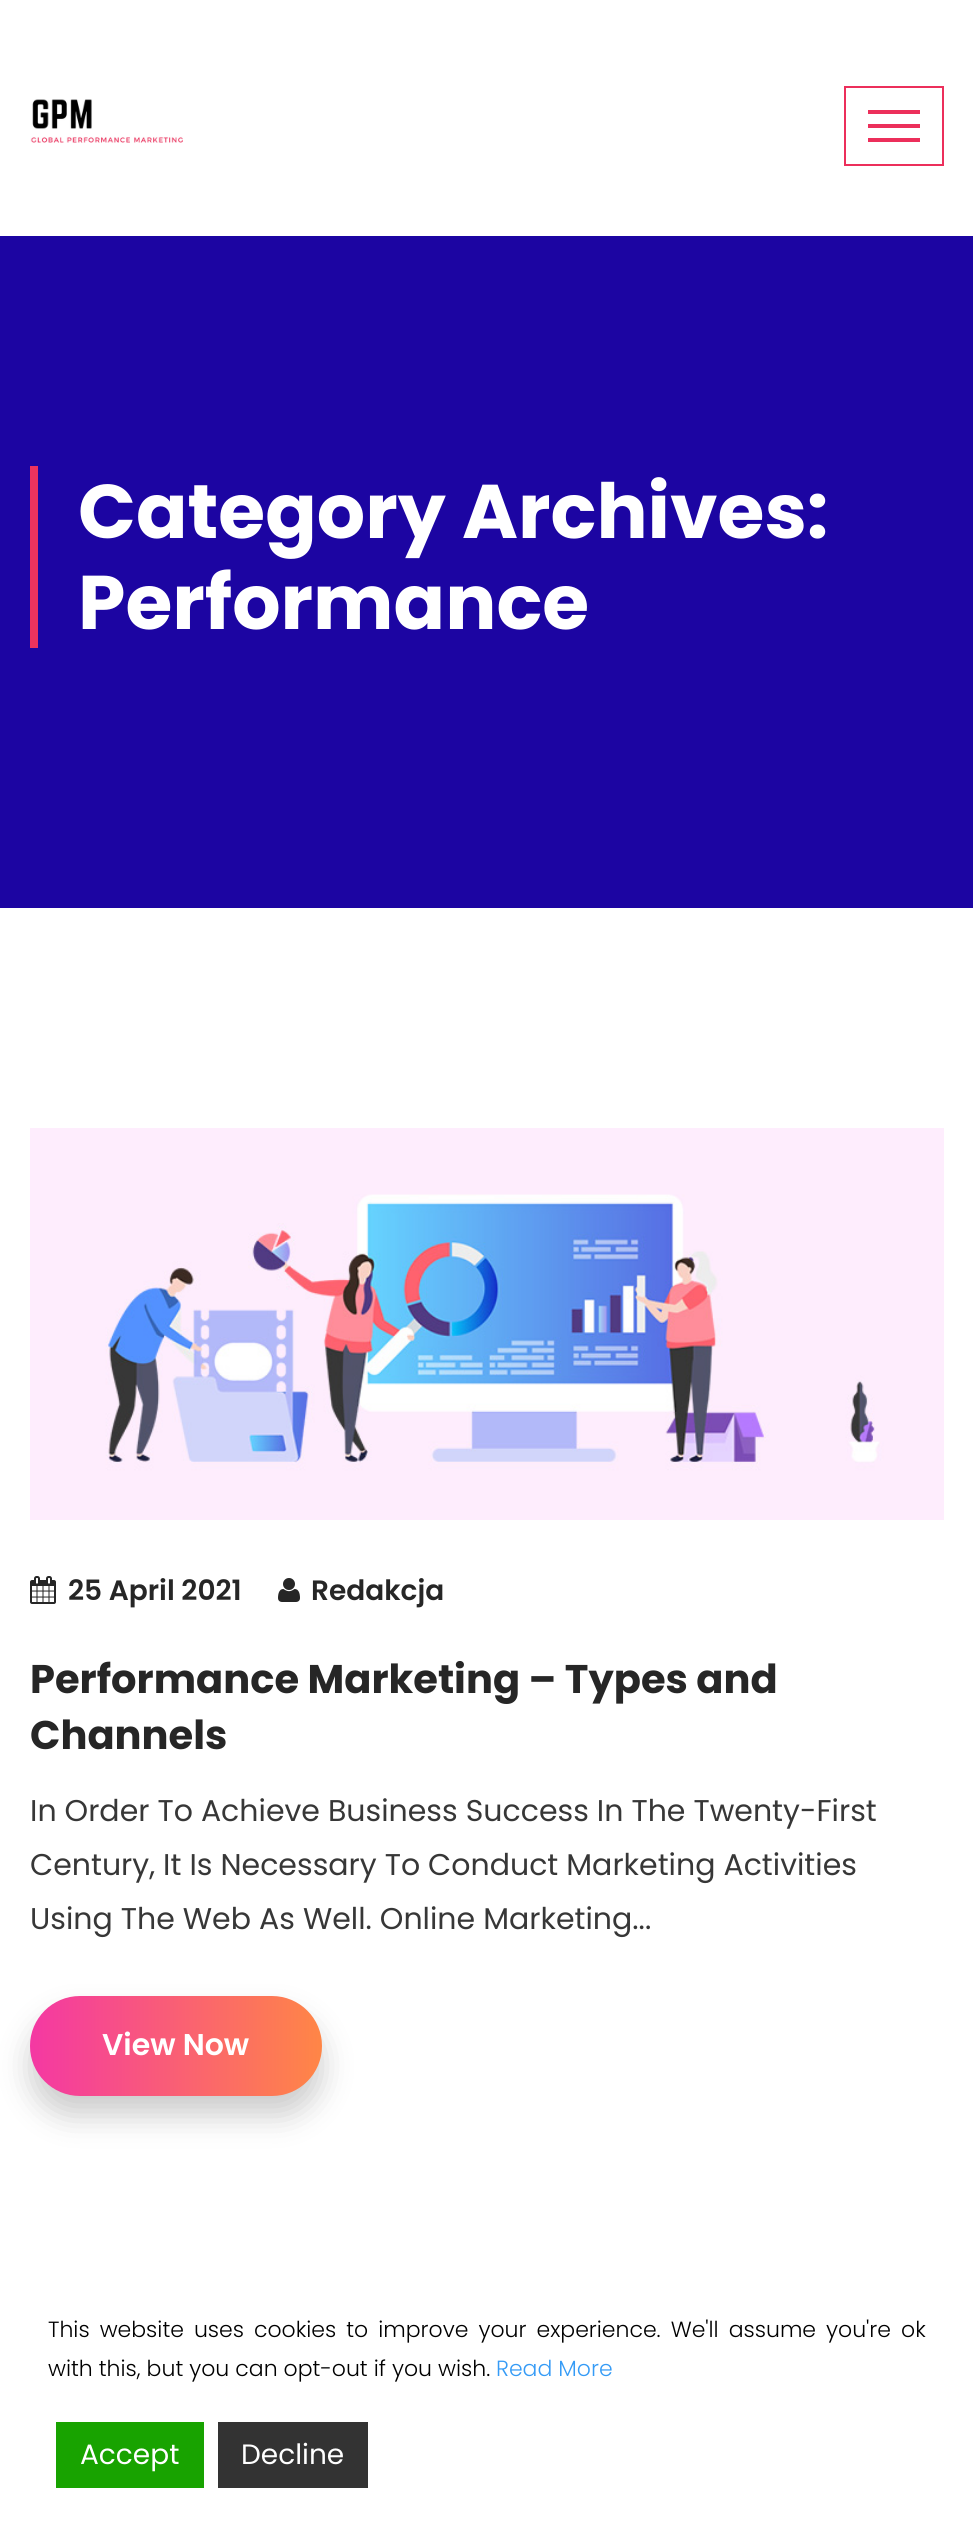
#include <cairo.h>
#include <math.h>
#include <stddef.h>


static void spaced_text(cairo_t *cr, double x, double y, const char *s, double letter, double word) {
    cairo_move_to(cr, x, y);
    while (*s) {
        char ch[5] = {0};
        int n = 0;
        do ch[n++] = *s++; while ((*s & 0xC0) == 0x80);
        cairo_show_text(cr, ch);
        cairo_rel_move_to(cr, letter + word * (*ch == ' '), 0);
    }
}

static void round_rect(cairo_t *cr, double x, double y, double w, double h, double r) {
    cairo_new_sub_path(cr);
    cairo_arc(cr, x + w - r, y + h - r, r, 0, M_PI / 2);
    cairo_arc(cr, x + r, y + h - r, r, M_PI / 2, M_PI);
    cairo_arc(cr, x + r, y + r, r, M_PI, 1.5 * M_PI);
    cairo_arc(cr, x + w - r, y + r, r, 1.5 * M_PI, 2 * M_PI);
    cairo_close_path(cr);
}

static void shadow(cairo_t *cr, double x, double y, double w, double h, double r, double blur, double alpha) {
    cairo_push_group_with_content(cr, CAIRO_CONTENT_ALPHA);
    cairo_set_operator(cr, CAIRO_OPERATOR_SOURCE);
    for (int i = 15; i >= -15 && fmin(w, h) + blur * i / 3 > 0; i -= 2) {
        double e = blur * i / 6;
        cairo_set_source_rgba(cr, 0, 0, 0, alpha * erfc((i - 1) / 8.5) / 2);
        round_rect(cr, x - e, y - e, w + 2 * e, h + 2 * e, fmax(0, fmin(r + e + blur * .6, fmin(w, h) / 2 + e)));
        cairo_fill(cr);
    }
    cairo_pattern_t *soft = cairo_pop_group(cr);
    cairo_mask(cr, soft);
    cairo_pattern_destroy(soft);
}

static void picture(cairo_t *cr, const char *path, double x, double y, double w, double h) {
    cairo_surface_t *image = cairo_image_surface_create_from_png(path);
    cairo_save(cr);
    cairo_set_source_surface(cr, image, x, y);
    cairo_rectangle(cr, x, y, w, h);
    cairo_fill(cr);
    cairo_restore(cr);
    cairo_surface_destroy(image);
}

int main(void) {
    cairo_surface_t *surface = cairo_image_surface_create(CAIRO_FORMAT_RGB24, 973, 2535);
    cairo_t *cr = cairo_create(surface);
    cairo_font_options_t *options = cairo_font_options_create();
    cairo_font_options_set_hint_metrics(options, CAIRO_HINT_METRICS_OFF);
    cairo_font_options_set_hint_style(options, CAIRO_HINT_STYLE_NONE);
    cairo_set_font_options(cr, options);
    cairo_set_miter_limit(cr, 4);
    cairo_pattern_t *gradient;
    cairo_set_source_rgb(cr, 1, 1, 1);
    cairo_paint(cr);
    picture(cr, "img1.png", 30, 99, 153, 44);
    cairo_rectangle(cr, 845, 87, 98, 78);
    cairo_set_source_rgb(cr, 0.922, 0.184, 0.357);
    cairo_stroke(cr);
    cairo_rectangle(cr, 868, 110, 52, 4);
    cairo_fill(cr);
    cairo_rectangle(cr, 868, 124, 52, 4);
    cairo_fill(cr);
    cairo_rectangle(cr, 868, 138, 52, 4);
    cairo_fill(cr);
    cairo_set_source_rgb(cr, 0.11, 0.02, 0.635);
    cairo_rectangle(cr, 0, 236, 973, 672);
    cairo_fill(cr);
    cairo_set_source_rgb(cr, 0.922, 0.2, 0.369);
    cairo_rectangle(cr, 30, 466, 8, 182);
    cairo_fill(cr);
    cairo_select_font_face(cr, "Poppins", CAIRO_FONT_SLANT_NORMAL, CAIRO_FONT_WEIGHT_BOLD);
    cairo_set_font_size(cr, 76);
    cairo_set_source_rgb(cr, 1, 1, 1);
    cairo_move_to(cr, 78, 538);
    cairo_show_text(cr, "Category Archives:");
    cairo_move_to(cr, 78, 629);
    cairo_show_text(cr, "Performance");
    picture(cr, "img2.png", 30, 1128, 914, 392);
    picture(cr, "img3.png", 30, 1576, 26, 28);
    cairo_select_font_face(cr, "Poppins SemiBold", CAIRO_FONT_SLANT_NORMAL, CAIRO_FONT_WEIGHT_NORMAL);
    cairo_set_font_size(cr, 28);
    cairo_set_source_rgb(cr, 0.149, 0.149, 0.149);
    cairo_move_to(cr, 68, 1600);
    cairo_show_text(cr, "25 April 2021");
    picture(cr, "img4.png", 278, 1578, 22, 24);
    cairo_move_to(cr, 311, 1600);
    cairo_show_text(cr, "Redakcja");
    cairo_select_font_face(cr, "Poppins", CAIRO_FONT_SLANT_NORMAL, CAIRO_FONT_WEIGHT_BOLD);
    cairo_set_font_size(cr, 40);
    cairo_move_to(cr, 30, 1693);
    cairo_show_text(cr, "Performance Marketing – Types and");
    cairo_move_to(cr, 30, 1749);
    cairo_show_text(cr, "Channels");
    cairo_select_font_face(cr, "Poppins", CAIRO_FONT_SLANT_NORMAL, CAIRO_FONT_WEIGHT_NORMAL);
    cairo_set_font_size(cr, 30);
    cairo_set_source_rgb(cr, 0.216, 0.216, 0.216);
    cairo_move_to(cr, 30, 1821);
    cairo_show_text(cr, "In Order To Achieve Business Success In The Twenty-First");
    cairo_move_to(cr, 30, 1875);
    cairo_show_text(cr, "Century, It Is Necessary To Conduct Marketing Activities");
    cairo_move_to(cr, 30, 1929);
    cairo_show_text(cr, "Using The Web As Well. Online Marketing...");
    cairo_set_source_rgb(cr, 0.02, 0.02, 0.02);
    shadow(cr, 30, 2016, 292, 100, 50, 15, 0.2);
    gradient = cairo_pattern_create_linear(30, 2046, 322, 2046);
    cairo_pattern_add_color_stop_rgba(gradient, 0, 0.957, 0.22, 0.639, 1);
    cairo_pattern_add_color_stop_rgba(gradient, 1, 1, 0.525, 0.275, 1);
    cairo_set_source(cr, gradient);
    cairo_pattern_destroy(gradient);
    round_rect(cr, 30, 1996, 292, 100, 50);
    cairo_fill(cr);
    cairo_select_font_face(cr, "Poppins SemiBold", CAIRO_FONT_SLANT_NORMAL, CAIRO_FONT_WEIGHT_NORMAL);
    cairo_set_source_rgb(cr, 1, 1, 1);
    cairo_move_to(cr, 102, 2055);
    cairo_show_text(cr, "View Now");
    cairo_select_font_face(cr, "Poppins Light", CAIRO_FONT_SLANT_NORMAL, CAIRO_FONT_WEIGHT_NORMAL);
    cairo_set_font_size(cr, 22);
    cairo_set_source_rgb(cr, 0, 0, 0);
    spaced_text(cr, 48, 2337, "This website uses cookies to improve your experience. We'll assume you're ok", 0, 4);
    cairo_move_to(cr, 48, 2376);
    cairo_show_text(cr, "with this, but you can opt-out if you wish.");
    cairo_set_source_rgb(cr, 0.208, 0.608, 0.961);
    cairo_move_to(cr, 496, 2376);
    cairo_show_text(cr, "Read More");
    cairo_set_source_rgb(cr, 0.094, 0.639, 0);
    cairo_rectangle(cr, 56, 2422, 148, 66);
    cairo_fill(cr);
    cairo_select_font_face(cr, "Poppins", CAIRO_FONT_SLANT_NORMAL, CAIRO_FONT_WEIGHT_NORMAL);
    cairo_set_font_size(cr, 28);
    cairo_set_source_rgb(cr, 1, 1, 1);
    cairo_move_to(cr, 80, 2464);
    cairo_show_text(cr, "Accept");
    cairo_set_source_rgb(cr, 0.2, 0.2, 0.2);
    cairo_rectangle(cr, 218, 2422, 150, 66);
    cairo_fill(cr);
    cairo_set_source_rgb(cr, 1, 1, 1);
    cairo_move_to(cr, 241, 2464);
    cairo_show_text(cr, "Decline");
    cairo_surface_write_to_png(surface, "page.png");
    cairo_font_options_destroy(options);
    cairo_destroy(cr);
    cairo_surface_destroy(surface);
    return 0;
}
